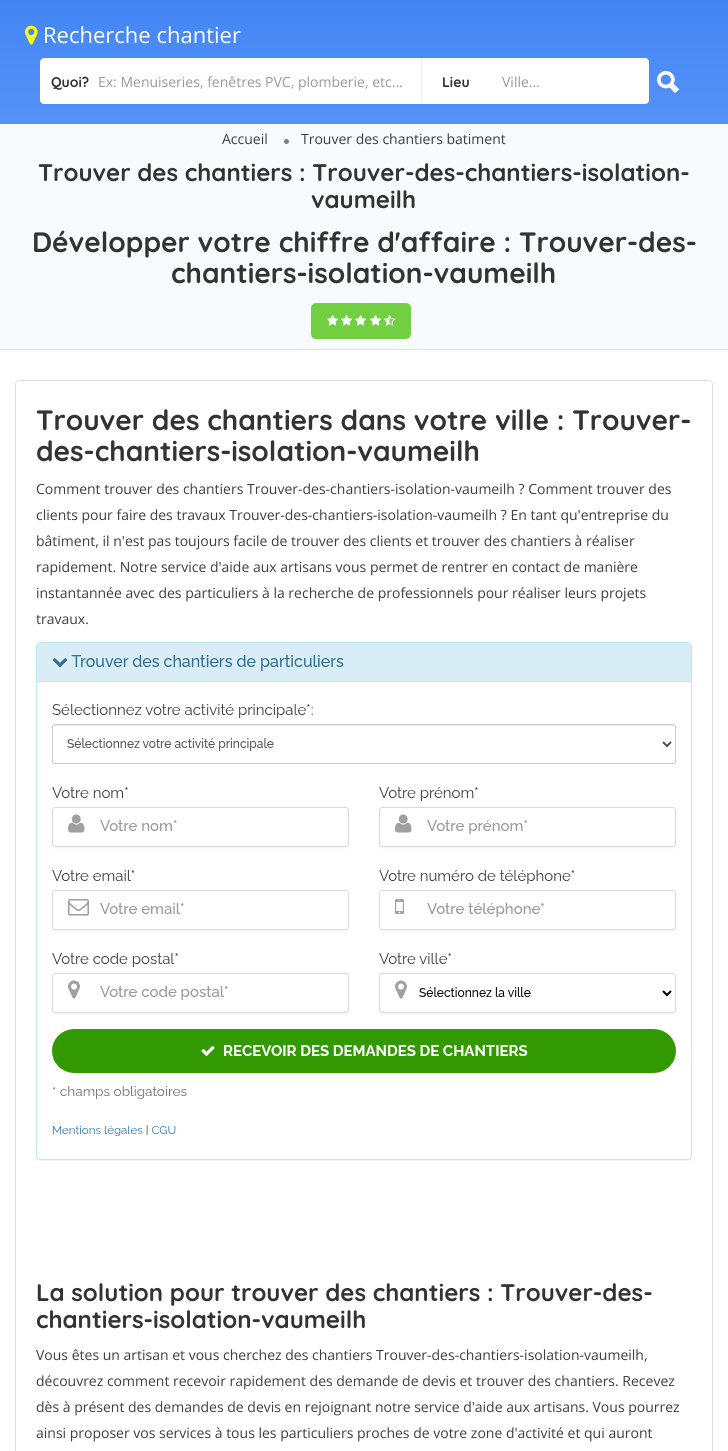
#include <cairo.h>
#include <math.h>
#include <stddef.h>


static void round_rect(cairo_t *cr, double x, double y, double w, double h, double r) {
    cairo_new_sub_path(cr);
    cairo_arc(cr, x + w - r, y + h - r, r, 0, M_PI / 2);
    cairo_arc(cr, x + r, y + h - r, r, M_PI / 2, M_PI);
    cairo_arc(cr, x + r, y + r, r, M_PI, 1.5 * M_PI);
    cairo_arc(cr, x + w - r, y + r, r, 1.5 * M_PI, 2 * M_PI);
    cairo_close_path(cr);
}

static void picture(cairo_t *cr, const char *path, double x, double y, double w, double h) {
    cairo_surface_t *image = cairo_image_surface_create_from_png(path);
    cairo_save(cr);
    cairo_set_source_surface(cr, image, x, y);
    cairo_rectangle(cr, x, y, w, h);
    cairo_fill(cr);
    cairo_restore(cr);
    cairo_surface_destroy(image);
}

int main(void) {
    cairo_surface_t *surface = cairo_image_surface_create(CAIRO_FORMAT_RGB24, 728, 1451);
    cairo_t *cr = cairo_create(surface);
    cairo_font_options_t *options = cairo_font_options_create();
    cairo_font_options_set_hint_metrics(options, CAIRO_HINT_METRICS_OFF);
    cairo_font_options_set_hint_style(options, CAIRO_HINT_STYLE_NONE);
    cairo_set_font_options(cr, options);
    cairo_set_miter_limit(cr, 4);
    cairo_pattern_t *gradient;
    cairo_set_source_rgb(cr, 1, 1, 1);
    cairo_paint(cr);
    gradient = cairo_pattern_create_linear(364, 0, 364, 124);
    cairo_pattern_add_color_stop_rgba(gradient, 0, 0.259, 0.522, 0.957, 1);
    cairo_pattern_add_color_stop_rgba(gradient, 1, 0.337, 0.573, 0.965, 1);
    cairo_set_source(cr, gradient);
    cairo_pattern_destroy(gradient);
    cairo_rectangle(cr, 0, 0, 728, 124);
    cairo_fill(cr);
    picture(cr, "img1.png", 25, 25, 13, 20);
    cairo_select_font_face(cr, "Open Sans", CAIRO_FONT_SLANT_NORMAL, CAIRO_FONT_WEIGHT_NORMAL);
    cairo_set_font_size(cr, 22);
    cairo_set_source_rgb(cr, 1, 1, 1);
    cairo_move_to(cr, 43, 43);
    cairo_show_text(cr, "Recherche chantier");
    cairo_new_path(cr);
    cairo_move_to(cr, 44, 58);
    cairo_line_to(cr, 422, 58);
    cairo_line_to(cr, 422, 104);
    cairo_line_to(cr, 44, 104);
    cairo_curve_to(cr, 42, 104, 40, 102, 40, 100);
    cairo_line_to(cr, 40, 62);
    cairo_curve_to(cr, 40, 60, 42, 58, 44, 58);
    cairo_close_path(cr);
    cairo_fill(cr);
    cairo_set_source_rgb(cr, 0.941, 0.941, 0.941);
    cairo_rectangle(cr, 421, 58, 1, 46);
    cairo_fill(cr);
    cairo_select_font_face(cr, "Quicksand", CAIRO_FONT_SLANT_NORMAL, CAIRO_FONT_WEIGHT_BOLD);
    cairo_set_font_size(cr, 14);
    cairo_set_source_rgb(cr, 0.2, 0.2, 0.2);
    cairo_move_to(cr, 51, 87);
    cairo_show_text(cr, "Quoi?");
    cairo_select_font_face(cr, "Open Sans", CAIRO_FONT_SLANT_NORMAL, CAIRO_FONT_WEIGHT_NORMAL);
    cairo_set_source_rgb(cr, 0.6, 0.6, 0.6);
    cairo_move_to(cr, 98, 87);
    cairo_show_text(cr, "Ex: Menuiseries, fenêtres PVC, plomberie, etc...");
    cairo_set_source_rgb(cr, 1, 1, 1);
    cairo_new_path(cr);
    cairo_move_to(cr, 422, 58);
    cairo_line_to(cr, 645, 58);
    cairo_curve_to(cr, 647, 58, 649, 60, 649, 62);
    cairo_line_to(cr, 649, 100);
    cairo_curve_to(cr, 649, 102, 647, 104, 645, 104);
    cairo_line_to(cr, 422, 104);
    cairo_close_path(cr);
    cairo_fill(cr);
    cairo_new_path(cr);
    cairo_move_to(cr, 422, 58);
    cairo_line_to(cr, 644, 58);
    cairo_curve_to(cr, 647, 58, 649, 60, 649, 63);
    cairo_line_to(cr, 649, 99);
    cairo_curve_to(cr, 649, 102, 647, 104, 644, 104);
    cairo_line_to(cr, 422, 104);
    cairo_close_path(cr);
    cairo_fill(cr);
    cairo_select_font_face(cr, "Quicksand", CAIRO_FONT_SLANT_NORMAL, CAIRO_FONT_WEIGHT_BOLD);
    cairo_set_source_rgb(cr, 0.2, 0.2, 0.2);
    cairo_move_to(cr, 442, 87);
    cairo_show_text(cr, "Lieu");
    cairo_select_font_face(cr, "Open Sans", CAIRO_FONT_SLANT_NORMAL, CAIRO_FONT_WEIGHT_NORMAL);
    cairo_set_source_rgb(cr, 0.6, 0.6, 0.6);
    cairo_move_to(cr, 502, 87);
    cairo_show_text(cr, "Ville...");
    picture(cr, "img2.png", 657, 71, 23, 22);
    cairo_set_source_rgb(cr, 0.969, 0.984, 0.996);
    cairo_rectangle(cr, 0, 124, 728, 225);
    cairo_fill(cr);
    cairo_set_source_rgb(cr, 0.859, 0.906, 0.937);
    cairo_rectangle(cr, 0, 349, 728, 1);
    cairo_fill(cr);
    cairo_set_source_rgb(cr, 0.212, 0.247, 0.282);
    cairo_move_to(cr, 222, 144);
    cairo_show_text(cr, "Accueil");
    cairo_set_source_rgb(cr, 0.498, 0.498, 0.498);
    cairo_new_path(cr);
    cairo_arc(cr, 286.5, 141.5, 2.5, 0, 2 * M_PI);
    cairo_fill(cr);
    cairo_set_source_rgb(cr, 0.212, 0.247, 0.282);
    cairo_move_to(cr, 301, 144);
    cairo_show_text(cr, "Trouver des chantiers batiment");
    cairo_select_font_face(cr, "Quicksand", CAIRO_FONT_SLANT_NORMAL, CAIRO_FONT_WEIGHT_BOLD);
    cairo_set_font_size(cr, 24);
    cairo_set_source_rgb(cr, 0.2, 0.2, 0.2);
    cairo_move_to(cr, 38, 181);
    cairo_show_text(cr, "Trouver des chantiers : Trouver-des-chantiers-isolation-");
    cairo_move_to(cr, 311, 208);
    cairo_show_text(cr, "vaumeilh");
    cairo_set_font_size(cr, 28);
    cairo_move_to(cr, 32, 252);
    cairo_show_text(cr, "Développer votre chiffre d'affaire : Trouver-des-");
    cairo_move_to(cr, 171, 283);
    cairo_show_text(cr, "chantiers-isolation-vaumeilh");
    cairo_set_source_rgb(cr, 0.451, 0.812, 0.259);
    round_rect(cr, 311, 303, 100, 36, 5);
    cairo_fill(cr);
    picture(cr, "img3.png", 327, 315, 12, 11);
    picture(cr, "img3.png", 341, 315, 12, 11);
    picture(cr, "img3.png", 355, 315, 12, 11);
    picture(cr, "img3.png", 370, 315, 12, 11);
    picture(cr, "img4.png", 384, 315, 11, 11);
    round_rect(cr, 15.5, 380.5, 697, 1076, 4.5);
    cairo_set_source_rgb(cr, 0.871, 0.871, 0.871);
    cairo_set_line_width(cr, 1);
    cairo_stroke(cr);
    cairo_set_source_rgb(cr, 0.2, 0.2, 0.2);
    cairo_move_to(cr, 36, 430);
    cairo_show_text(cr, "Trouver des chantiers dans votre ville : Trouver-");
    cairo_move_to(cr, 36, 461);
    cairo_show_text(cr, "des-chantiers-isolation-vaumeilh");
    cairo_select_font_face(cr, "Open Sans", CAIRO_FONT_SLANT_NORMAL, CAIRO_FONT_WEIGHT_NORMAL);
    cairo_set_font_size(cr, 14);
    cairo_set_source_rgb(cr, 0.243, 0.243, 0.243);
    cairo_move_to(cr, 36, 494);
    cairo_show_text(cr, "Comment trouver des chantiers Trouver-des-chantiers-isolation-vaumeilh ? Comment trouver des");
    cairo_move_to(cr, 36, 520);
    cairo_show_text(cr, "clients pour faire des travaux Trouver-des-chantiers-isolation-vaumeilh ? En tant qu'entreprise du");
    cairo_move_to(cr, 36, 546);
    cairo_show_text(cr, "bâtiment, il n'est pas toujours facile de trouver des clients et trouver des chantiers à réaliser");
    cairo_move_to(cr, 36, 572);
    cairo_show_text(cr, "rapidement. Notre service d'aide aux artisans vous permet de rentrer en contact de manière");
    cairo_move_to(cr, 36, 598);
    cairo_show_text(cr, "instantannée avec des particuliers à la recherche de professionnels pour réaliser leurs projets");
    cairo_move_to(cr, 36, 624);
    cairo_show_text(cr, "travaux.");
    picture(cr, "img5.png", 36, 642, 656, 519);
    cairo_select_font_face(cr, "Quicksand", CAIRO_FONT_SLANT_NORMAL, CAIRO_FONT_WEIGHT_BOLD);
    cairo_set_font_size(cr, 24);
    cairo_set_source_rgb(cr, 0.2, 0.2, 0.2);
    cairo_move_to(cr, 36, 1301);
    cairo_show_text(cr, "La solution pour trouver des chantiers : Trouver-des-");
    cairo_move_to(cr, 36, 1328);
    cairo_show_text(cr, "chantiers-isolation-vaumeilh");
    cairo_select_font_face(cr, "Open Sans", CAIRO_FONT_SLANT_NORMAL, CAIRO_FONT_WEIGHT_NORMAL);
    cairo_set_font_size(cr, 14);
    cairo_set_source_rgb(cr, 0.243, 0.243, 0.243);
    cairo_move_to(cr, 36, 1360);
    cairo_show_text(cr, "Vous êtes un artisan et vous cherchez des chantiers Trouver-des-chantiers-isolation-vaumeilh,");
    cairo_move_to(cr, 36, 1386);
    cairo_show_text(cr, "découvrez comment recevoir rapidement des demande de devis et trouver des chantiers. Recevez");
    cairo_move_to(cr, 36, 1412);
    cairo_show_text(cr, "dès à présent des demandes de devis en rejoignant notre service d'aide aux artisans. Vous pourrez");
    cairo_move_to(cr, 36, 1438);
    cairo_show_text(cr, "ainsi proposer vos services à tous les particuliers proches de votre zone d'activité et qui auront");
    cairo_surface_write_to_png(surface, "page.png");
    cairo_font_options_destroy(options);
    cairo_destroy(cr);
    cairo_surface_destroy(surface);
    return 0;
}
